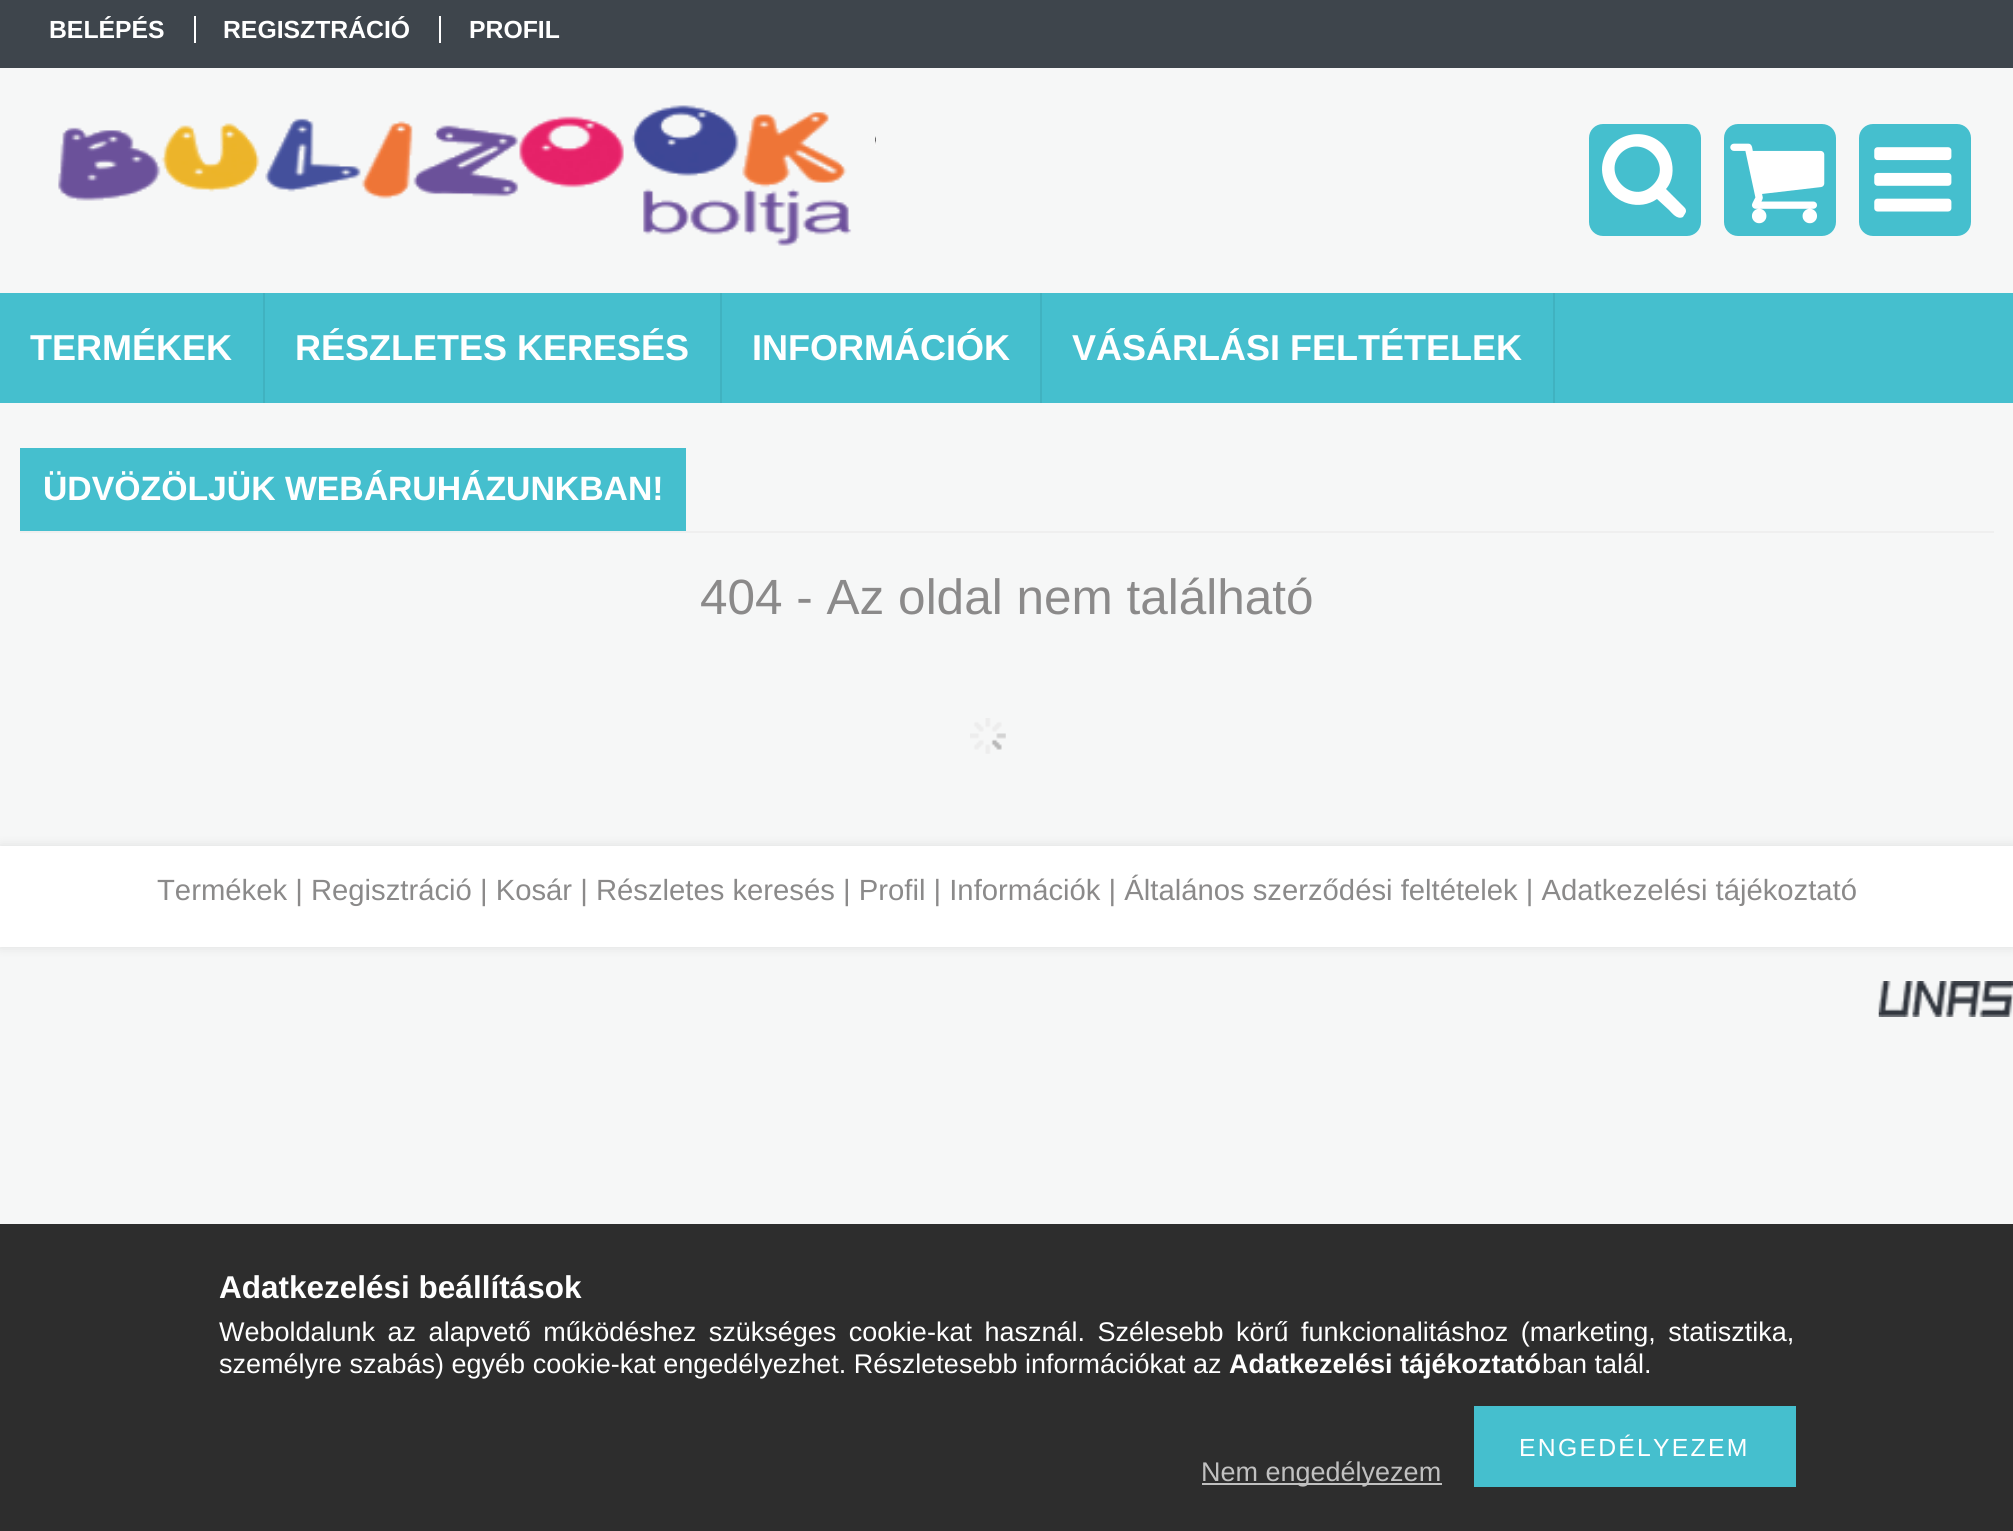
#include <cairo.h>
#include <math.h>
#include <stddef.h>


static void spaced_text(cairo_t *cr, double x, double y, const char *s, double letter, double word) {
    cairo_move_to(cr, x, y);
    while (*s) {
        char ch[5] = {0};
        int n = 0;
        do ch[n++] = *s++; while ((*s & 0xC0) == 0x80);
        cairo_show_text(cr, ch);
        cairo_rel_move_to(cr, letter + word * (*ch == ' '), 0);
    }
}

static void round_rect(cairo_t *cr, double x, double y, double w, double h, double r) {
    cairo_new_sub_path(cr);
    cairo_arc(cr, x + w - r, y + h - r, r, 0, M_PI / 2);
    cairo_arc(cr, x + r, y + h - r, r, M_PI / 2, M_PI);
    cairo_arc(cr, x + r, y + r, r, M_PI, 1.5 * M_PI);
    cairo_arc(cr, x + w - r, y + r, r, 1.5 * M_PI, 2 * M_PI);
    cairo_close_path(cr);
}

static void shadow(cairo_t *cr, double x, double y, double w, double h, double r, double blur, double alpha) {
    cairo_push_group_with_content(cr, CAIRO_CONTENT_ALPHA);
    cairo_set_operator(cr, CAIRO_OPERATOR_SOURCE);
    for (int i = 15; i >= -15 && fmin(w, h) + blur * i / 3 > 0; i -= 2) {
        double e = blur * i / 6;
        cairo_set_source_rgba(cr, 0, 0, 0, alpha * erfc((i - 1) / 8.5) / 2);
        round_rect(cr, x - e, y - e, w + 2 * e, h + 2 * e, fmax(0, fmin(r + e + blur * .6, fmin(w, h) / 2 + e)));
        cairo_fill(cr);
    }
    cairo_pattern_t *soft = cairo_pop_group(cr);
    cairo_mask(cr, soft);
    cairo_pattern_destroy(soft);
}

static void picture(cairo_t *cr, const char *path, double x, double y, double w, double h) {
    cairo_surface_t *image = cairo_image_surface_create_from_png(path);
    cairo_save(cr);
    cairo_set_source_surface(cr, image, x, y);
    cairo_rectangle(cr, x, y, w, h);
    cairo_fill(cr);
    cairo_restore(cr);
    cairo_surface_destroy(image);
}

int main(void) {
    cairo_surface_t *surface = cairo_image_surface_create(CAIRO_FORMAT_RGB24, 2013, 1531);
    cairo_t *cr = cairo_create(surface);
    cairo_font_options_t *options = cairo_font_options_create();
    cairo_font_options_set_hint_metrics(options, CAIRO_HINT_METRICS_OFF);
    cairo_font_options_set_hint_style(options, CAIRO_HINT_STYLE_NONE);
    cairo_set_font_options(cr, options);
    cairo_set_miter_limit(cr, 4);
    cairo_set_source_rgb(cr, 0.961, 0.965, 0.965);
    cairo_paint(cr);
    cairo_set_source_rgb(cr, 0.243, 0.271, 0.298);
    cairo_rectangle(cr, 0, 0, 2013, 68);
    cairo_fill(cr);
    cairo_select_font_face(cr, "Liberation Sans", CAIRO_FONT_SLANT_NORMAL, CAIRO_FONT_WEIGHT_BOLD);
    cairo_set_font_size(cr, 24.75);
    cairo_set_source_rgb(cr, 1, 1, 1);
    cairo_move_to(cr, 49, 38);
    cairo_show_text(cr, "BELÉPÉS");
    cairo_rectangle(cr, 194, 16, 2, 27);
    cairo_fill(cr);
    cairo_move_to(cr, 223, 38);
    cairo_show_text(cr, "REGISZTRÁCIÓ");
    cairo_rectangle(cr, 439, 16, 2, 27);
    cairo_fill(cr);
    cairo_move_to(cr, 469, 38);
    cairo_show_text(cr, "PROFIL");
    picture(cr, "img1.png", 58, 105, 794, 141);
    picture(cr, "img2.png", 875, 136, 1, 10);
    cairo_set_source_rgb(cr, 0.271, 0.749, 0.808);
    round_rect(cr, 1589, 124, 112, 112, 14);
    cairo_fill(cr);
    cairo_set_source_rgb(cr, 1, 1, 1);
    cairo_new_path(cr);
    cairo_move_to(cr, 1653, 185);
    cairo_curve_to(cr, 1674, 164, 1642, 133, 1621, 153);
    cairo_curve_to(cr, 1601, 174, 1632, 206, 1653, 185);
    cairo_close_path(cr);
    cairo_move_to(cr, 1686, 211);
    cairo_curve_to(cr, 1686, 213, 1684, 215, 1683, 217);
    cairo_curve_to(cr, 1677, 220, 1672, 213, 1669, 210);
    cairo_line_to(cr, 1657, 199);
    cairo_curve_to(cr, 1640, 211, 1615, 204, 1606, 185);
    cairo_curve_to(cr, 1602, 177, 1601, 169, 1603, 161);
    cairo_curve_to(cr, 1612, 126, 1661, 125, 1671, 159);
    cairo_curve_to(cr, 1674, 169, 1673, 181, 1666, 189);
    cairo_line_to(cr, 1684, 207);
    cairo_curve_to(cr, 1685, 208, 1686, 209, 1686, 211);
    cairo_close_path(cr);
    cairo_fill(cr);
    cairo_set_source_rgb(cr, 0.271, 0.749, 0.808);
    round_rect(cr, 1724, 124, 112, 112, 14);
    cairo_fill(cr);
    picture(cr, "img3.png", 1730, 143, 95, 81);
    round_rect(cr, 1859, 124, 112, 112, 14);
    cairo_fill(cr);
    picture(cr, "img4.png", 1874, 147, 78, 65);
    cairo_rectangle(cr, 0, 293, 2013, 110);
    cairo_fill(cr);
    cairo_set_source_rgba(cr, 0, 0, 0, 0.07);
    cairo_rectangle(cr, 263, 293, 2, 110);
    cairo_fill(cr);
    cairo_set_font_size(cr, 36);
    cairo_set_source_rgb(cr, 1, 1, 1);
    cairo_move_to(cr, 30, 360);
    cairo_show_text(cr, "TERMÉKEK");
    cairo_set_source_rgba(cr, 0, 0, 0, 0.07);
    cairo_rectangle(cr, 720, 293, 2, 110);
    cairo_fill(cr);
    cairo_set_source_rgb(cr, 1, 1, 1);
    cairo_move_to(cr, 295, 360);
    cairo_show_text(cr, "RÉSZLETES KERESÉS");
    cairo_set_source_rgba(cr, 0, 0, 0, 0.07);
    cairo_rectangle(cr, 1040, 293, 2, 110);
    cairo_fill(cr);
    cairo_set_source_rgb(cr, 1, 1, 1);
    cairo_move_to(cr, 752, 360);
    cairo_show_text(cr, "INFORMÁCIÓK");
    cairo_set_source_rgba(cr, 0, 0, 0, 0.07);
    cairo_rectangle(cr, 1553, 293, 2, 110);
    cairo_fill(cr);
    cairo_set_source_rgb(cr, 1, 1, 1);
    cairo_move_to(cr, 1072, 360);
    cairo_show_text(cr, "VÁSÁRLÁSI FELTÉTELEK");
    cairo_set_source_rgb(cr, 0.937, 0.937, 0.937);
    cairo_rectangle(cr, 20, 531, 1974, 2);
    cairo_fill(cr);
    cairo_set_source_rgb(cr, 0.271, 0.749, 0.808);
    cairo_rectangle(cr, 20, 448, 666, 83);
    cairo_fill(cr);
    cairo_set_font_size(cr, 33.75);
    cairo_set_source_rgb(cr, 1, 1, 1);
    cairo_move_to(cr, 43, 500);
    cairo_show_text(cr, "ÜDVÖZÖLJÜK WEBÁRUHÁZUNKBAN!");
    cairo_select_font_face(cr, "Liberation Sans", CAIRO_FONT_SLANT_NORMAL, CAIRO_FONT_WEIGHT_NORMAL);
    cairo_set_font_size(cr, 49.5);
    cairo_set_source_rgb(cr, 0.545, 0.541, 0.541);
    cairo_move_to(cr, 700, 614);
    cairo_show_text(cr, "404 - Az oldal nem található");
    picture(cr, "img5.png", 970, 718, 36, 36);
    cairo_set_source_rgb(cr, 0, 0, 0);
    shadow(cr, 0, 846, 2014, 101, 0, 5.5, 0.1);
    cairo_set_source_rgb(cr, 1, 1, 1);
    cairo_rectangle(cr, 0, 846, 2013, 101);
    cairo_fill(cr);
    cairo_set_font_size(cr, 29.25);
    cairo_set_source_rgb(cr, 0.545, 0.541, 0.541);
    cairo_move_to(cr, 157, 900);
    cairo_show_text(cr, "Termékek | Regisztráció | Kosár | Részletes keresés | Profil | Információk | Általános szerződési feltételek | Adatkezelési tájékoztató");
    picture(cr, "img6.png", 1878, 981, 135, 36);
    cairo_set_source_rgb(cr, 0.176, 0.176, 0.176);
    cairo_rectangle(cr, 0, 1224, 2013, 307);
    cairo_fill(cr);
    cairo_select_font_face(cr, "Liberation Sans", CAIRO_FONT_SLANT_NORMAL, CAIRO_FONT_WEIGHT_BOLD);
    cairo_set_font_size(cr, 31.5);
    cairo_set_source_rgb(cr, 1, 1, 1);
    cairo_move_to(cr, 219, 1298);
    cairo_show_text(cr, "Adatkezelési beállítások");
    cairo_select_font_face(cr, "Liberation Sans", CAIRO_FONT_SLANT_NORMAL, CAIRO_FONT_WEIGHT_NORMAL);
    cairo_set_font_size(cr, 27);
    spaced_text(cr, 219, 1341, "Weboldalunk az alapvető működéshez szükséges cookie-kat használ. Szélesebb körű funkcionalitáshoz (marketing, statisztika,", 0, 5);
    cairo_move_to(cr, 219, 1373);
    cairo_show_text(cr, "személyre szabás) egyéb cookie-kat engedélyezhet. Részletesebb információkat az");
    cairo_select_font_face(cr, "Liberation Sans", CAIRO_FONT_SLANT_NORMAL, CAIRO_FONT_WEIGHT_BOLD);
    cairo_move_to(cr, 1229, 1373);
    cairo_show_text(cr, "Adatkezelési tájékoztató");
    cairo_select_font_face(cr, "Liberation Sans", CAIRO_FONT_SLANT_NORMAL, CAIRO_FONT_WEIGHT_NORMAL);
    cairo_move_to(cr, 1542, 1373);
    cairo_show_text(cr, "ban talál.");
    cairo_set_source_rgb(cr, 0.271, 0.749, 0.808);
    cairo_rectangle(cr, 1474, 1406, 322, 81);
    cairo_fill(cr);
    cairo_set_font_size(cr, 24.75);
    cairo_set_source_rgb(cr, 1, 1, 1);
    spaced_text(cr, 1519, 1456, "ENGEDÉLYEZEM", 2.25, 0);
    cairo_set_source_rgb(cr, 0.753, 0.753, 0.753);
    cairo_rectangle(cr, 1202, 1483, 240, 2);
    cairo_fill(cr);
    cairo_set_font_size(cr, 27);
    cairo_move_to(cr, 1201, 1481);
    cairo_show_text(cr, "Nem engedélyezem");
    cairo_surface_write_to_png(surface, "page.png");
    cairo_font_options_destroy(options);
    cairo_destroy(cr);
    cairo_surface_destroy(surface);
    return 0;
}
